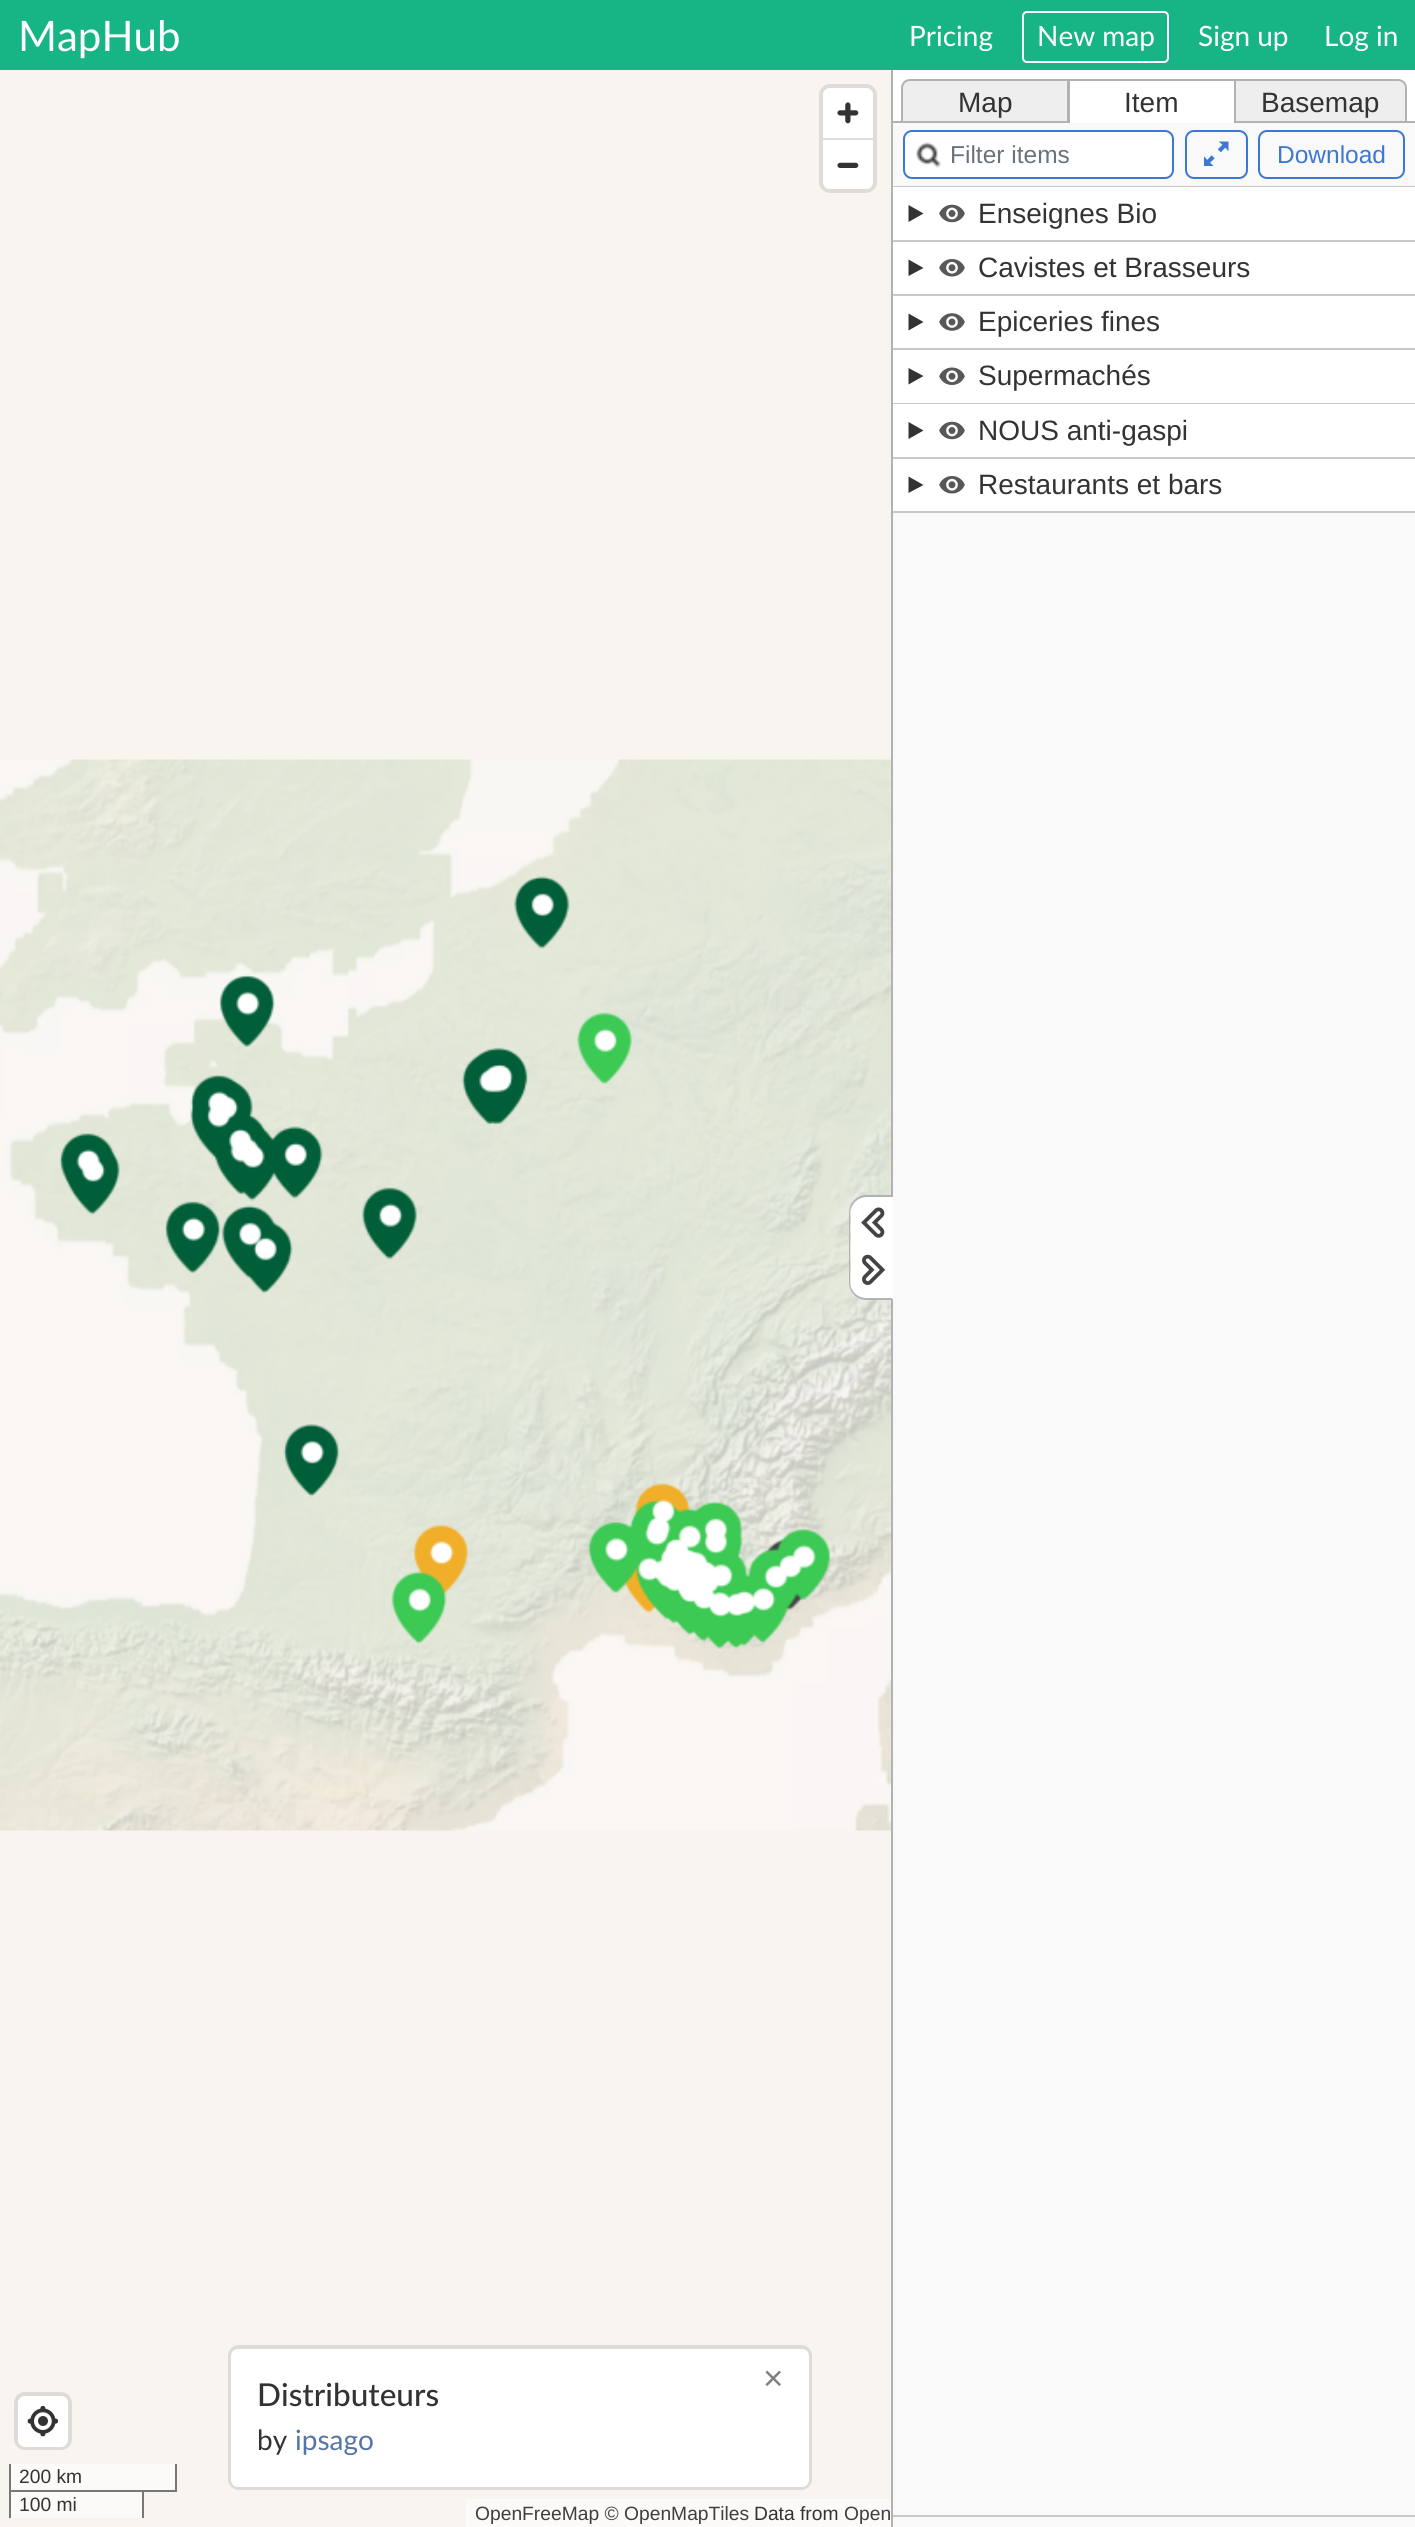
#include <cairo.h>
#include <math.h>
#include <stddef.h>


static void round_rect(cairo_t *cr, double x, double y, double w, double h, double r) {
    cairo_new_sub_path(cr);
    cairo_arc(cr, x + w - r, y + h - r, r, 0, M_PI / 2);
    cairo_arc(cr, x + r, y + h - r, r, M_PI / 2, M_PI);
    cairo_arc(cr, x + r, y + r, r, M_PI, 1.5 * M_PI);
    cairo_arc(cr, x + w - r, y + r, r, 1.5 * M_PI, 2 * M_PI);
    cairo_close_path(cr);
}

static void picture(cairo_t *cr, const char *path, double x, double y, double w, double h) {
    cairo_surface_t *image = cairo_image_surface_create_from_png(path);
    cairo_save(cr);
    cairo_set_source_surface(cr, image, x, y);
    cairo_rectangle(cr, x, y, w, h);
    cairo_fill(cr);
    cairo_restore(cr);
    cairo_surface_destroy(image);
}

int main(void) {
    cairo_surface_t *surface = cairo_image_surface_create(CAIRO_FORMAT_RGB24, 1415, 2527);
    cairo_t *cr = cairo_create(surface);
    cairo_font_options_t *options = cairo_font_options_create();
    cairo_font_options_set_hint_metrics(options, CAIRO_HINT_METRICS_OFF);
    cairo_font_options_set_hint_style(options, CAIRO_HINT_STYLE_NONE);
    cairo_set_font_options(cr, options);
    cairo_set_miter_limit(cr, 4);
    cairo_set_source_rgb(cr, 1, 1, 1);
    cairo_paint(cr);
    cairo_set_source_rgb(cr, 0.09, 0.71, 0.522);
    cairo_rectangle(cr, 0, 0, 1415, 70);
    cairo_fill(cr);
    cairo_select_font_face(cr, "Lato", CAIRO_FONT_SLANT_NORMAL, CAIRO_FONT_WEIGHT_NORMAL);
    cairo_set_font_size(cr, 42);
    cairo_set_source_rgb(cr, 1, 1, 1);
    cairo_move_to(cr, 18, 51);
    cairo_show_text(cr, "MapHub");
    cairo_set_font_size(cr, 28);
    cairo_move_to(cr, 909, 46);
    cairo_show_text(cr, "Pricing");
    round_rect(cr, 1023, 12, 145, 50, 4);
    cairo_stroke(cr);
    cairo_move_to(cr, 1037, 46);
    cairo_show_text(cr, "New map");
    cairo_move_to(cr, 1198, 46);
    cairo_show_text(cr, "Sign up");
    cairo_move_to(cr, 1324, 46);
    cairo_show_text(cr, "Log in");
    cairo_set_source_rgb(cr, 0.973, 0.973, 0.973);
    cairo_rectangle(cr, 893, 123, 522, 2404);
    cairo_fill(cr);
    cairo_set_source_rgb(cr, 0.698, 0.698, 0.698);
    cairo_rectangle(cr, 891, 70, 2, 2457);
    cairo_fill(cr);
    cairo_rectangle(cr, 893, 121, 522, 2);
    cairo_fill(cr);
    cairo_set_source_rgb(cr, 0.933, 0.933, 0.933);
    cairo_new_path(cr);
    cairo_move_to(cr, 910, 80);
    cairo_line_to(cr, 1068, 80);
    cairo_line_to(cr, 1068, 122);
    cairo_line_to(cr, 902, 122);
    cairo_line_to(cr, 902, 88);
    cairo_curve_to(cr, 902, 83.5, 905.5, 80, 910, 80);
    cairo_close_path(cr);
    cairo_fill_preserve(cr);
    cairo_set_source_rgb(cr, 0.698, 0.698, 0.698);
    cairo_stroke(cr);
    cairo_select_font_face(cr, "Liberation Sans", CAIRO_FONT_SLANT_NORMAL, CAIRO_FONT_WEIGHT_NORMAL);
    cairo_set_source_rgb(cr, 0.2, 0.2, 0.2);
    cairo_move_to(cr, 958, 112);
    cairo_show_text(cr, "Map");
    cairo_set_source_rgb(cr, 1, 1, 1);
    cairo_rectangle(cr, 1070, 121, 164, 2);
    cairo_fill(cr);
    cairo_set_source_rgb(cr, 0.698, 0.698, 0.698);
    cairo_rectangle(cr, 1068, 79, 168, 2);
    cairo_fill(cr);
    cairo_rectangle(cr, 1069, 79, 1, 44);
    cairo_fill(cr);
    cairo_set_source_rgb(cr, 0.2, 0.2, 0.2);
    cairo_move_to(cr, 1124, 112);
    cairo_show_text(cr, "Item");
    cairo_set_source_rgb(cr, 0.933, 0.933, 0.933);
    cairo_new_path(cr);
    cairo_move_to(cr, 1235, 80);
    cairo_line_to(cr, 1398, 80);
    cairo_curve_to(cr, 1402.5, 80, 1406, 83.5, 1406, 88);
    cairo_line_to(cr, 1406, 122);
    cairo_line_to(cr, 1235, 122);
    cairo_close_path(cr);
    cairo_fill_preserve(cr);
    cairo_set_source_rgb(cr, 0.698, 0.698, 0.698);
    cairo_stroke(cr);
    cairo_set_source_rgb(cr, 0.2, 0.2, 0.2);
    cairo_move_to(cr, 1261, 112);
    cairo_show_text(cr, "Basemap");
    cairo_set_source_rgb(cr, 1, 1, 1);
    round_rect(cr, 904, 131, 269, 47, 8);
    cairo_fill_preserve(cr);
    cairo_set_source_rgb(cr, 0.235, 0.467, 0.831);
    cairo_stroke(cr);
    picture(cr, "img1.png", 916, 142, 26, 26);
    cairo_set_font_size(cr, 24.5);
    cairo_set_source_rgb(cr, 0.416, 0.451, 0.49);
    cairo_move_to(cr, 950, 163);
    cairo_show_text(cr, "Filter items");
    round_rect(cr, 1186, 131, 61, 47, 8);
    cairo_set_source_rgb(cr, 0.235, 0.467, 0.831);
    cairo_stroke(cr);
    picture(cr, "img2.png", 1204, 141, 25, 25);
    round_rect(cr, 1259, 131, 145, 47, 8);
    cairo_stroke(cr);
    cairo_move_to(cr, 1277, 163);
    cairo_show_text(cr, "Download");
    cairo_set_source_rgb(cr, 0.784, 0.78, 0.8);
    cairo_rectangle(cr, 893, 186, 522, 1);
    cairo_fill(cr);
    cairo_rectangle(cr, 893, 2515, 522, 2);
    cairo_fill(cr);
    cairo_set_source_rgb(cr, 1, 1, 1);
    cairo_rectangle(cr, 893, 187, 522, 53);
    cairo_fill(cr);
    cairo_set_source_rgb(cr, 0.784, 0.78, 0.8);
    cairo_rectangle(cr, 893, 240, 522, 2);
    cairo_fill(cr);
    cairo_set_source_rgb(cr, 0.2, 0.2, 0.2);
    cairo_new_path(cr);
    cairo_move_to(cr, 923.5, 213.5);
    cairo_line_to(cr, 908.5, 205);
    cairo_line_to(cr, 908.5, 222);
    cairo_close_path(cr);
    cairo_fill(cr);
    picture(cr, "img3.png", 939, 204, 26, 19);
    cairo_set_font_size(cr, 28);
    cairo_move_to(cr, 978, 223);
    cairo_show_text(cr, "Enseignes Bio");
    cairo_set_source_rgb(cr, 1, 1, 1);
    cairo_rectangle(cr, 893, 242, 522, 52);
    cairo_fill(cr);
    cairo_set_source_rgb(cr, 0.784, 0.78, 0.8);
    cairo_rectangle(cr, 893, 294, 522, 2);
    cairo_fill(cr);
    cairo_set_source_rgb(cr, 0.2, 0.2, 0.2);
    cairo_new_path(cr);
    cairo_move_to(cr, 923.5, 268);
    cairo_line_to(cr, 908.5, 259.5);
    cairo_line_to(cr, 908.5, 276);
    cairo_close_path(cr);
    cairo_fill(cr);
    picture(cr, "img4.png", 939, 259, 26, 18);
    cairo_move_to(cr, 978, 277);
    cairo_show_text(cr, "Cavistes et Brasseurs");
    cairo_set_source_rgb(cr, 1, 1, 1);
    cairo_rectangle(cr, 893, 296, 522, 52);
    cairo_fill(cr);
    cairo_set_source_rgb(cr, 0.784, 0.78, 0.8);
    cairo_rectangle(cr, 893, 348, 522, 2);
    cairo_fill(cr);
    cairo_set_source_rgb(cr, 0.2, 0.2, 0.2);
    cairo_new_path(cr);
    cairo_move_to(cr, 923.5, 322);
    cairo_line_to(cr, 908.5, 313.5);
    cairo_line_to(cr, 908.5, 330.5);
    cairo_close_path(cr);
    cairo_fill(cr);
    picture(cr, "img5.png", 939, 313, 26, 18);
    cairo_move_to(cr, 978, 331);
    cairo_show_text(cr, "Epiceries fines");
    cairo_set_source_rgb(cr, 1, 1, 1);
    cairo_rectangle(cr, 893, 350, 522, 53);
    cairo_fill(cr);
    cairo_set_source_rgb(cr, 0.784, 0.78, 0.8);
    cairo_rectangle(cr, 893, 403, 522, 1);
    cairo_fill(cr);
    cairo_set_source_rgb(cr, 0.2, 0.2, 0.2);
    cairo_new_path(cr);
    cairo_move_to(cr, 923.5, 376);
    cairo_line_to(cr, 908.5, 368);
    cairo_line_to(cr, 908.5, 384.5);
    cairo_close_path(cr);
    cairo_fill(cr);
    picture(cr, "img6.png", 939, 367, 26, 18);
    cairo_move_to(cr, 978, 385);
    cairo_show_text(cr, "Supermachés");
    cairo_set_source_rgb(cr, 1, 1, 1);
    cairo_rectangle(cr, 893, 404, 522, 53);
    cairo_fill(cr);
    cairo_set_source_rgb(cr, 0.784, 0.78, 0.8);
    cairo_rectangle(cr, 893, 457, 522, 2);
    cairo_fill(cr);
    cairo_set_source_rgb(cr, 0.2, 0.2, 0.2);
    cairo_new_path(cr);
    cairo_move_to(cr, 923.5, 430.5);
    cairo_line_to(cr, 908.5, 422);
    cairo_line_to(cr, 908.5, 439);
    cairo_close_path(cr);
    cairo_fill(cr);
    picture(cr, "img3.png", 939, 421, 26, 19);
    cairo_move_to(cr, 978, 440);
    cairo_show_text(cr, "NOUS anti-gaspi");
    cairo_set_source_rgb(cr, 1, 1, 1);
    cairo_rectangle(cr, 893, 459, 522, 52);
    cairo_fill(cr);
    cairo_set_source_rgb(cr, 0.784, 0.78, 0.8);
    cairo_rectangle(cr, 893, 511, 522, 2);
    cairo_fill(cr);
    cairo_set_source_rgb(cr, 0.2, 0.2, 0.2);
    cairo_new_path(cr);
    cairo_move_to(cr, 923.5, 485);
    cairo_line_to(cr, 908.5, 476.5);
    cairo_line_to(cr, 908.5, 493);
    cairo_close_path(cr);
    cairo_fill(cr);
    picture(cr, "img4.png", 939, 476, 26, 18);
    cairo_move_to(cr, 978, 494);
    cairo_show_text(cr, "Restaurants et bars");
    picture(cr, "img9.png", 0, 70, 891, 2457);
    cairo_set_source_rgb(cr, 1, 1, 1);
    cairo_new_path(cr);
    cairo_move_to(cr, 867, 1197);
    cairo_line_to(cr, 893, 1197);
    cairo_line_to(cr, 893, 1299);
    cairo_line_to(cr, 867, 1299);
    cairo_curve_to(cr, 858, 1299, 851, 1292, 851, 1283);
    cairo_line_to(cr, 851, 1213);
    cairo_curve_to(cr, 851, 1204, 858, 1197, 867, 1197);
    cairo_close_path(cr);
    cairo_fill(cr);
    cairo_set_source_rgb(cr, 0.698, 0.698, 0.698);
    cairo_set_fill_rule(cr, CAIRO_FILL_RULE_EVEN_ODD);
    cairo_new_path(cr);
    cairo_move_to(cr, 866, 1195);
    cairo_line_to(cr, 892, 1195);
    cairo_line_to(cr, 892, 1300);
    cairo_line_to(cr, 866, 1300);
    cairo_curve_to(cr, 857, 1300, 849, 1292, 849, 1283);
    cairo_line_to(cr, 849, 1213);
    cairo_curve_to(cr, 849, 1203, 857, 1195, 866, 1195);
    cairo_close_path(cr);
    cairo_move_to(cr, 866, 1197);
    cairo_line_to(cr, 892, 1197);
    cairo_line_to(cr, 892, 1298);
    cairo_line_to(cr, 866, 1298);
    cairo_curve_to(cr, 858, 1298, 850, 1291, 850, 1283);
    cairo_line_to(cr, 850, 1213);
    cairo_curve_to(cr, 850, 1204, 858, 1197, 866, 1197);
    cairo_close_path(cr);
    cairo_fill(cr);
    picture(cr, "img7.png", 861, 1207, 24, 31);
    picture(cr, "img8.png", 862, 1254, 24, 31);
    round_rect(cr, 230, 2347, 580, 141, 9);
    cairo_set_source_rgb(cr, 0.875, 0.863, 0.847);
    cairo_set_line_width(cr, 4);
    cairo_stroke(cr);
    cairo_set_source_rgb(cr, 1, 1, 1);
    round_rect(cr, 231, 2349, 578, 138, 7);
    cairo_fill(cr);
    cairo_set_font_size(cr, 35);
    cairo_set_source_rgb(cr, 0.502, 0.502, 0.502);
    cairo_move_to(cr, 763, 2390);
    cairo_show_text(cr, "×");
    cairo_select_font_face(cr, "Lato Medium", CAIRO_FONT_SLANT_NORMAL, CAIRO_FONT_WEIGHT_NORMAL);
    cairo_set_font_size(cr, 31.5);
    cairo_set_source_rgb(cr, 0.2, 0.2, 0.2);
    cairo_move_to(cr, 257, 2406);
    cairo_show_text(cr, "Distributeurs");
    cairo_select_font_face(cr, "Lato", CAIRO_FONT_SLANT_NORMAL, CAIRO_FONT_WEIGHT_NORMAL);
    cairo_set_font_size(cr, 28);
    cairo_move_to(cr, 257, 2450);
    cairo_show_text(cr, "by");
    cairo_set_source_rgb(cr, 0.333, 0.455, 0.655);
    cairo_move_to(cr, 295, 2450);
    cairo_show_text(cr, "ipsago");
    round_rect(cr, 821, 86, 54, 105, 9);
    cairo_set_source_rgb(cr, 0.875, 0.863, 0.847);
    cairo_stroke(cr);
    cairo_set_source_rgb(cr, 1, 1, 1);
    round_rect(cr, 823, 88, 50, 101, 7);
    cairo_fill(cr);
    picture(cr, "img10.png", 837, 102, 22, 22);
    cairo_set_source_rgb(cr, 0.867, 0.867, 0.867);
    cairo_rectangle(cr, 823, 138, 50, 2);
    cairo_fill(cr);
    picture(cr, "img11.png", 837, 162, 22, 6);
    round_rect(cr, 16, 2394, 54, 54, 9);
    cairo_set_source_rgb(cr, 0.875, 0.863, 0.847);
    cairo_stroke(cr);
    cairo_set_source_rgb(cr, 1, 1, 1);
    round_rect(cr, 18, 2396, 50, 51, 7);
    cairo_fill(cr);
    picture(cr, "img12.png", 27, 2405, 32, 32);
    cairo_set_source_rgb(cr, 0.988, 0.98, 0.973);
    cairo_rectangle(cr, 11, 2464, 164, 26);
    cairo_fill(cr);
    cairo_set_source_rgb(cr, 0.467, 0.467, 0.467);
    cairo_rectangle(cr, 175, 2464, 2, 28);
    cairo_fill(cr);
    cairo_rectangle(cr, 9, 2490, 168, 2);
    cairo_fill(cr);
    cairo_rectangle(cr, 9, 2464, 2, 54);
    cairo_fill(cr);
    cairo_select_font_face(cr, "Liberation Sans", CAIRO_FONT_SLANT_NORMAL, CAIRO_FONT_WEIGHT_NORMAL);
    cairo_set_font_size(cr, 19.25);
    cairo_set_source_rgb(cr, 0.2, 0.2, 0.2);
    cairo_move_to(cr, 19, 2483);
    cairo_show_text(cr, "200 km");
    cairo_set_source_rgb(cr, 0.988, 0.98, 0.973);
    cairo_rectangle(cr, 11, 2492, 131, 26);
    cairo_fill(cr);
    cairo_set_source_rgb(cr, 0.467, 0.467, 0.467);
    cairo_rectangle(cr, 142, 2492, 2, 26);
    cairo_fill(cr);
    cairo_set_source_rgb(cr, 0.2, 0.2, 0.2);
    cairo_move_to(cr, 19, 2511);
    cairo_show_text(cr, "100 mi");
    cairo_set_source_rgb(cr, 0.988, 0.98, 0.973);
    cairo_rectangle(cr, 466, 2499, 425, 28);
    cairo_fill(cr);
    cairo_set_source_rgb(cr, 0.247, 0.247, 0.243);
    cairo_move_to(cr, 475, 2520);
    cairo_show_text(cr, "OpenFreeMap © OpenMapTiles");
    cairo_set_source_rgb(cr, 0.2, 0.2, 0.2);
    cairo_move_to(cr, 754, 2520);
    cairo_show_text(cr, "Data from");
    cairo_set_source_rgb(cr, 0.247, 0.247, 0.243);
    cairo_move_to(cr, 844, 2520);
    cairo_show_text(cr, "Open");
    cairo_surface_write_to_png(surface, "page.png");
    cairo_font_options_destroy(options);
    cairo_destroy(cr);
    cairo_surface_destroy(surface);
    return 0;
}
